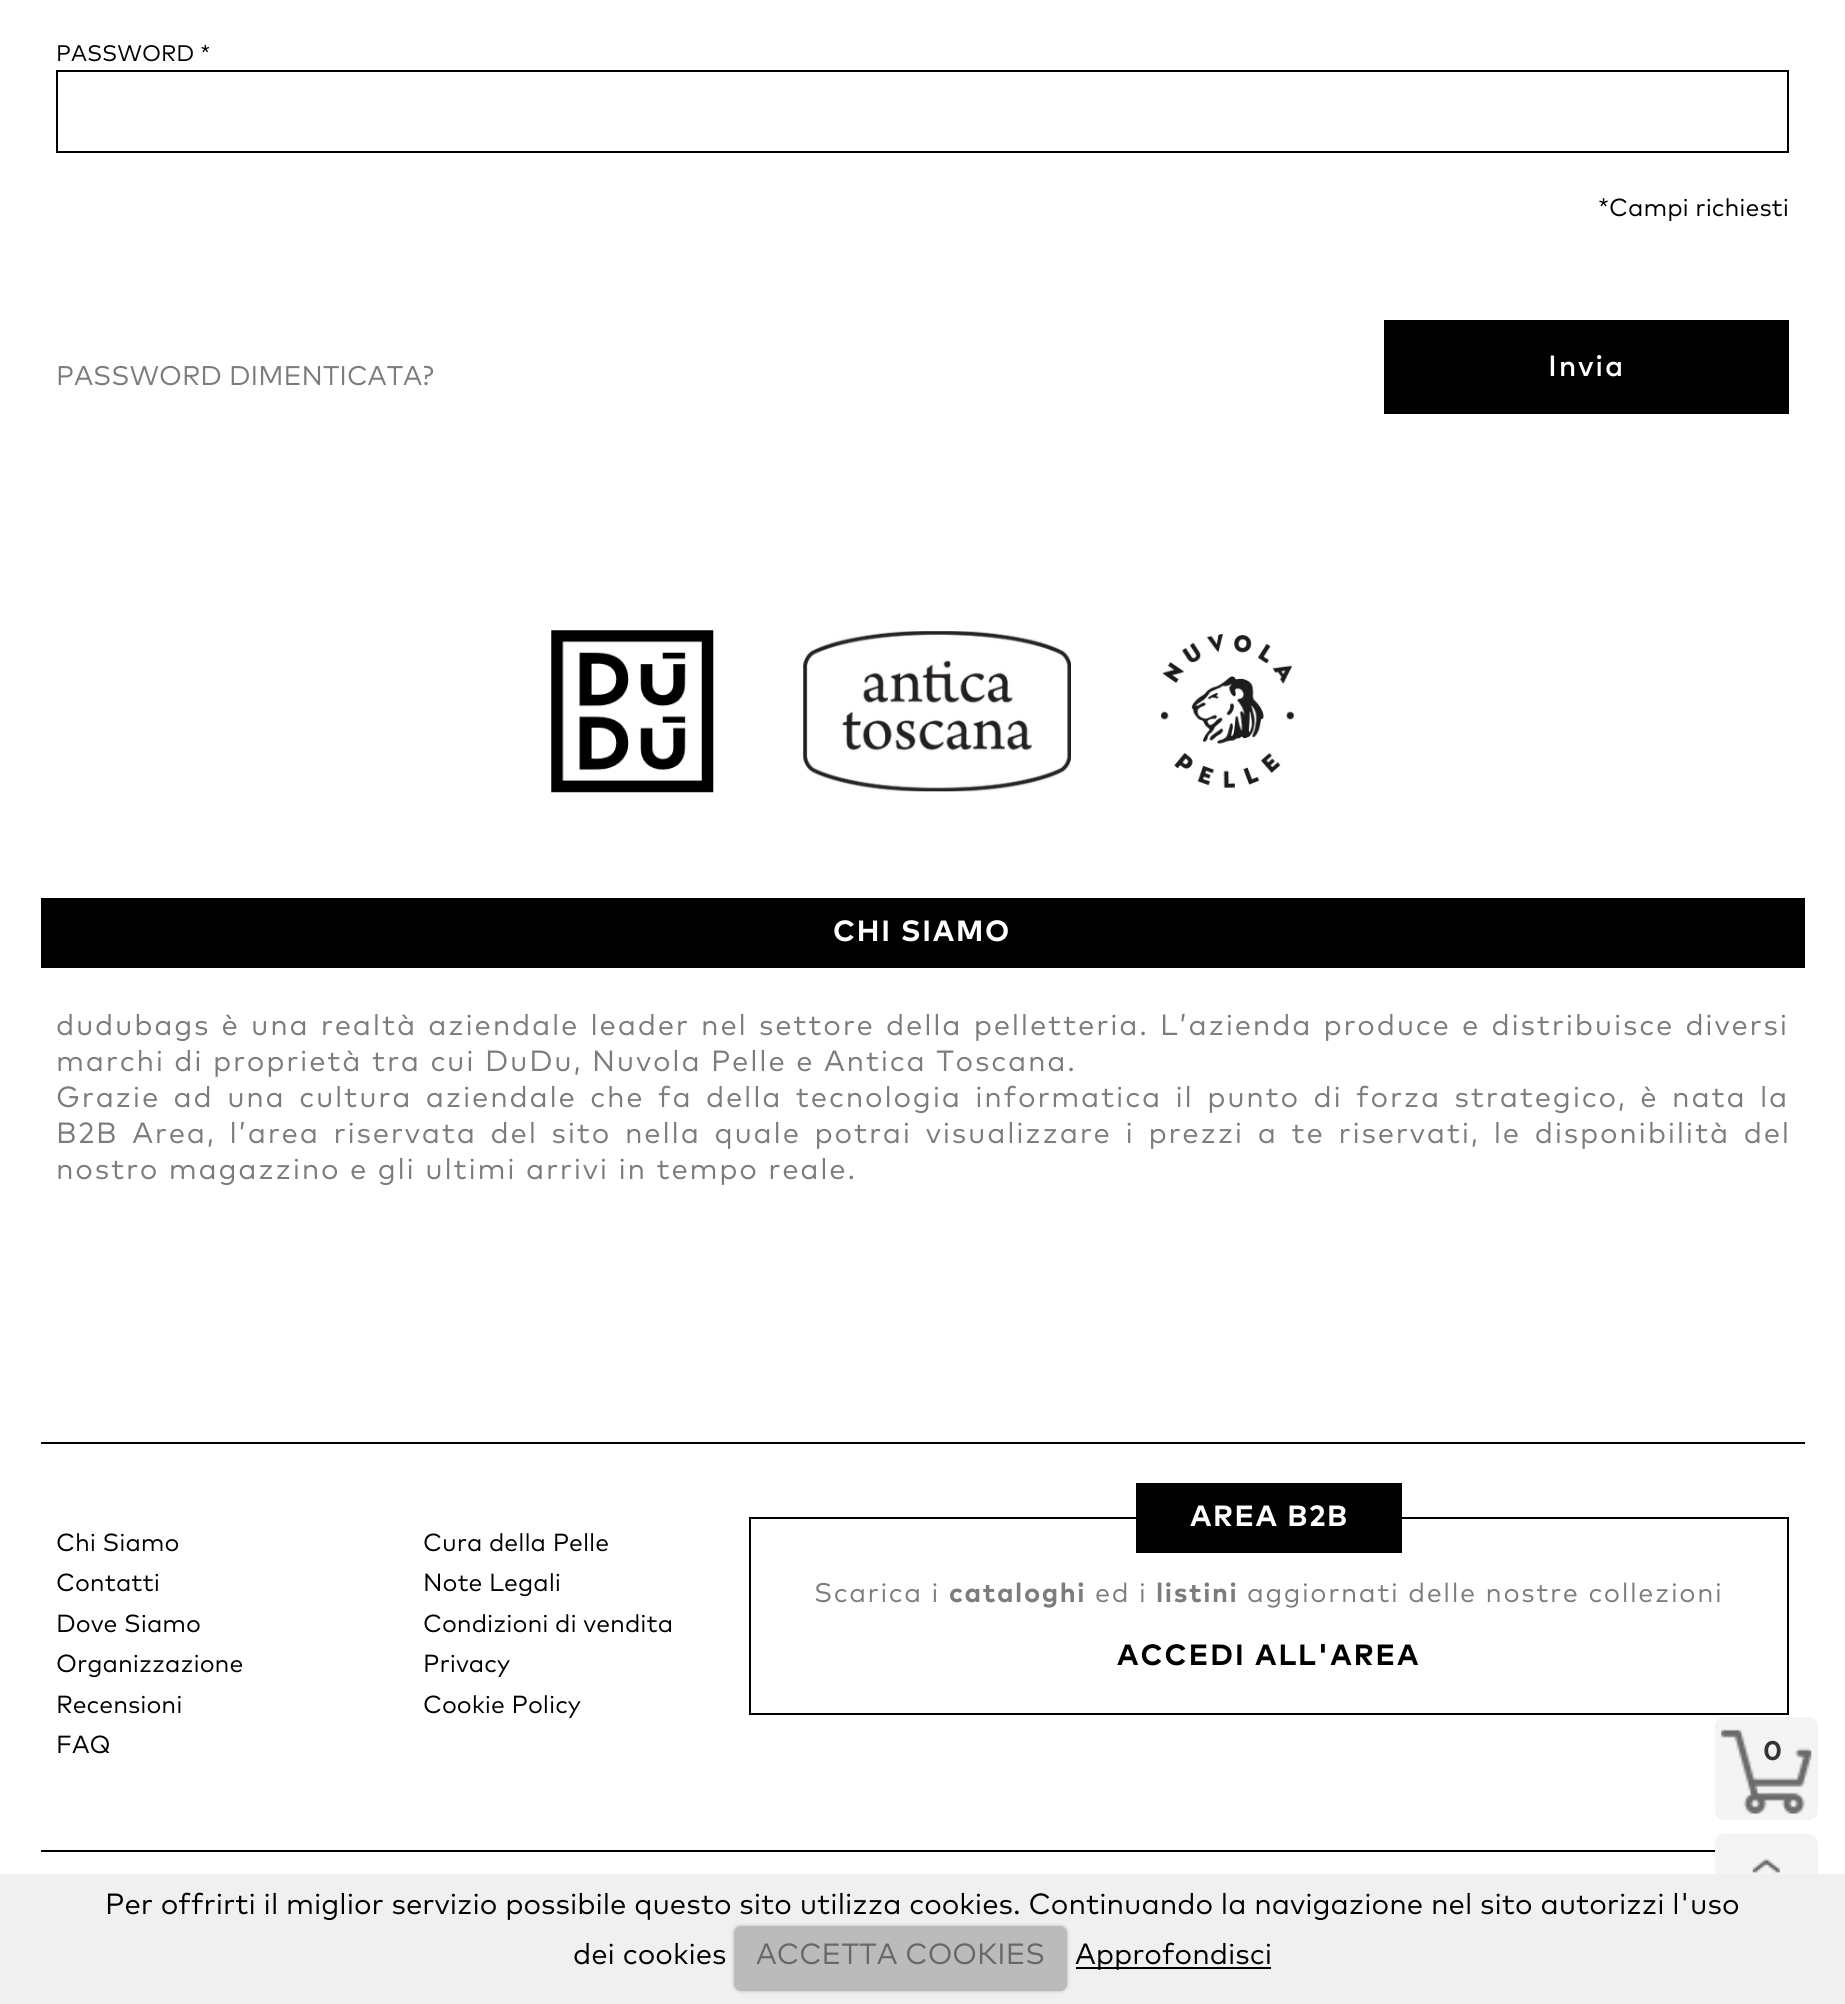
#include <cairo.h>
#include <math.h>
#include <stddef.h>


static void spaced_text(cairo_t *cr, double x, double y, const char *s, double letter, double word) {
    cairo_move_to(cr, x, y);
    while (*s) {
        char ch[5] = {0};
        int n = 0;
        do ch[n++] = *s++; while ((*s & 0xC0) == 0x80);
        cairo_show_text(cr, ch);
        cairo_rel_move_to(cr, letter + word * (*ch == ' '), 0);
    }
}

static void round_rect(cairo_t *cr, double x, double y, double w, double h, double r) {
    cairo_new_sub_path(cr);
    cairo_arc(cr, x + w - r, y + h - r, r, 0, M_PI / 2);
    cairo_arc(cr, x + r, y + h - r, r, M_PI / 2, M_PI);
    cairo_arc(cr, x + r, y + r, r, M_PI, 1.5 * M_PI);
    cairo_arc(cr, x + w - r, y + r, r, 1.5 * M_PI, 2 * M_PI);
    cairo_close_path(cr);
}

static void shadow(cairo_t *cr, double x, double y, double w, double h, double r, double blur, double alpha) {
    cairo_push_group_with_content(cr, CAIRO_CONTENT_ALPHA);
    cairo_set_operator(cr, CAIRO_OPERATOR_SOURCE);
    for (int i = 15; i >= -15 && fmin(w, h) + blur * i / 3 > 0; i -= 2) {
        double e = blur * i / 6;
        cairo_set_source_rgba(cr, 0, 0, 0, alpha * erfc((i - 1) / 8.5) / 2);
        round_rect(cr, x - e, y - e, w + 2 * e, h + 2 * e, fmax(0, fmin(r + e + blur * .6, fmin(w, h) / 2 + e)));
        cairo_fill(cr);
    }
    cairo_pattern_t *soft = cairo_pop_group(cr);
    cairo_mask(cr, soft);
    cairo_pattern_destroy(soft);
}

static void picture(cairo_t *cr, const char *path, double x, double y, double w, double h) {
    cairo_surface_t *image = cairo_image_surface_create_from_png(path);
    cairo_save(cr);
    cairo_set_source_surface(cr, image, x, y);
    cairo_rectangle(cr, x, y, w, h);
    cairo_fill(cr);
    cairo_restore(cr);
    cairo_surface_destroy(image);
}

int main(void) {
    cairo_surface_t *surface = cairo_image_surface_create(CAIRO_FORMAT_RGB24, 1845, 2004);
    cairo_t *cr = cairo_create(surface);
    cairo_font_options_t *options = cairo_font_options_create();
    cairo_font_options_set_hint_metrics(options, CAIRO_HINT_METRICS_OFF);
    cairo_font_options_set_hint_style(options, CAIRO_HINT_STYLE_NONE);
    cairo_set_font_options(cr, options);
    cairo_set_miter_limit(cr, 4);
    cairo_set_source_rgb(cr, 1, 1, 1);
    cairo_paint(cr);
    cairo_select_font_face(cr, "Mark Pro", CAIRO_FONT_SLANT_NORMAL, CAIRO_FONT_WEIGHT_NORMAL);
    cairo_set_font_size(cr, 22.5);
    cairo_set_source_rgb(cr, 0, 0, 0);
    cairo_move_to(cr, 56, 61);
    cairo_show_text(cr, "PASSWORD *");
    cairo_rectangle(cr, 57, 71, 1731, 81);
    cairo_stroke(cr);
    cairo_set_font_size(cr, 24.75);
    cairo_move_to(cr, 1598, 216);
    cairo_show_text(cr, "*Campi richiesti");
    cairo_set_font_size(cr, 27);
    cairo_set_source_rgb(cr, 0.486, 0.486, 0.486);
    cairo_move_to(cr, 56, 385);
    cairo_show_text(cr, "PASSWORD DIMENTICATA?");
    cairo_set_source_rgb(cr, 0, 0, 0);
    cairo_rectangle(cr, 1384, 320, 405, 94);
    cairo_fill(cr);
    cairo_select_font_face(cr, "Mark Pro Medium", CAIRO_FONT_SLANT_NORMAL, CAIRO_FONT_WEIGHT_NORMAL);
    cairo_set_font_size(cr, 29.25);
    cairo_set_source_rgb(cr, 1, 1, 1);
    spaced_text(cr, 1548, 376, "Invia", 1.76, 0);
    picture(cr, "img1.png", 551, 630, 163, 163);
    picture(cr, "img2.png", 803, 631, 268, 161);
    picture(cr, "img3.png", 1161, 634, 133, 154);
    cairo_set_source_rgb(cr, 0, 0, 0);
    cairo_rectangle(cr, 41, 898, 1764, 70);
    cairo_fill(cr);
    cairo_select_font_face(cr, "Mark Pro", CAIRO_FONT_SLANT_NORMAL, CAIRO_FONT_WEIGHT_BOLD);
    cairo_set_source_rgb(cr, 1, 1, 1);
    spaced_text(cr, 833, 941, "CHI SIAMO", 1.76, 0);
    cairo_select_font_face(cr, "Mark Pro", CAIRO_FONT_SLANT_NORMAL, CAIRO_FONT_WEIGHT_NORMAL);
    cairo_set_source_rgb(cr, 0.486, 0.486, 0.486);
    spaced_text(cr, 56, 1035, "dudubags è una realtà aziendale leader nel settore della pelletteria. L’azienda produce e distribuisce diversi", 1.76, 1.75);
    spaced_text(cr, 56, 1071, "marchi di proprietà tra cui DuDu, Nuvola Pelle e Antica Toscana.", 1.76, 0);
    spaced_text(cr, 56, 1107, "Grazie ad una cultura aziendale che fa della tecnologia informatica il punto di forza strategico, è nata la", 1.76, 4);
    spaced_text(cr, 56, 1143, "B2B Area, l’area riservata del sito nella quale potrai visualizzare i prezzi a te riservati, le disponibilità del", 1.76, 4.25);
    spaced_text(cr, 56, 1179, "nostro magazzino e gli ultimi arrivi in tempo reale.", 1.76, 0);
    cairo_set_source_rgb(cr, 0, 0, 0);
    cairo_rectangle(cr, 41, 1442, 1764, 2);
    cairo_fill(cr);
    cairo_set_font_size(cr, 24.75);
    cairo_move_to(cr, 56, 1551);
    cairo_show_text(cr, "Chi Siamo");
    cairo_move_to(cr, 423, 1551);
    cairo_show_text(cr, "Cura della Pelle");
    cairo_move_to(cr, 56, 1591);
    cairo_show_text(cr, "Contatti");
    cairo_move_to(cr, 423, 1591);
    cairo_show_text(cr, "Note Legali");
    cairo_move_to(cr, 56, 1632);
    cairo_show_text(cr, "Dove Siamo");
    cairo_move_to(cr, 423, 1632);
    cairo_show_text(cr, "Condizioni di vendita");
    cairo_move_to(cr, 56, 1672);
    cairo_show_text(cr, "Organizzazione");
    cairo_move_to(cr, 423, 1672);
    cairo_show_text(cr, "Privacy");
    cairo_move_to(cr, 56, 1713);
    cairo_show_text(cr, "Recensioni");
    cairo_move_to(cr, 423, 1713);
    cairo_show_text(cr, "Cookie Policy");
    cairo_move_to(cr, 56, 1753);
    cairo_show_text(cr, "FAQ");
    cairo_rectangle(cr, 750, 1518, 1038, 196);
    cairo_stroke(cr);
    cairo_rectangle(cr, 1136, 1483, 266, 70);
    cairo_fill(cr);
    cairo_select_font_face(cr, "Mark Pro", CAIRO_FONT_SLANT_NORMAL, CAIRO_FONT_WEIGHT_BOLD);
    cairo_set_font_size(cr, 29.25);
    cairo_set_source_rgb(cr, 1, 1, 1);
    spaced_text(cr, 1190, 1526, "AREA B2B", 1.5, 0);
    cairo_select_font_face(cr, "Mark Pro", CAIRO_FONT_SLANT_NORMAL, CAIRO_FONT_WEIGHT_NORMAL);
    cairo_set_font_size(cr, 27);
    cairo_set_source_rgb(cr, 0.486, 0.486, 0.486);
    spaced_text(cr, 814, 1602, "Scarica i", 1.6, 0);
    cairo_select_font_face(cr, "Mark Pro", CAIRO_FONT_SLANT_NORMAL, CAIRO_FONT_WEIGHT_BOLD);
    spaced_text(cr, 949, 1602, "cataloghi", 1.6, 0);
    cairo_select_font_face(cr, "Mark Pro", CAIRO_FONT_SLANT_NORMAL, CAIRO_FONT_WEIGHT_NORMAL);
    spaced_text(cr, 1095, 1602, "ed i", 1.6, 0);
    cairo_select_font_face(cr, "Mark Pro", CAIRO_FONT_SLANT_NORMAL, CAIRO_FONT_WEIGHT_BOLD);
    spaced_text(cr, 1156, 1602, "listini", 1.6, 0);
    cairo_select_font_face(cr, "Mark Pro", CAIRO_FONT_SLANT_NORMAL, CAIRO_FONT_WEIGHT_NORMAL);
    spaced_text(cr, 1247, 1602, "aggiornati delle nostre collezioni", 1.6, 0);
    cairo_select_font_face(cr, "Mark Pro", CAIRO_FONT_SLANT_NORMAL, CAIRO_FONT_WEIGHT_BOLD);
    cairo_set_font_size(cr, 29.25);
    cairo_set_source_rgb(cr, 0, 0, 0);
    spaced_text(cr, 1117, 1665, "ACCEDI ALL'AREA", 2, 0);
    cairo_rectangle(cr, 41, 1850, 1674, 2);
    cairo_fill(cr);
    cairo_set_source_rgb(cr, 0.957, 0.957, 0.957);
    round_rect(cr, 1715, 1717, 103, 103, 9);
    cairo_fill(cr);
    picture(cr, "img4.png", 1721, 1729, 91, 85);
    cairo_set_font_size(cr, 27);
    cairo_set_source_rgb(cr, 0.2, 0.2, 0.2);
    cairo_move_to(cr, 1763, 1760);
    cairo_show_text(cr, "0");
    cairo_set_source_rgb(cr, 0.957, 0.957, 0.957);
    round_rect(cr, 1715, 1834, 103, 103, 9);
    cairo_fill(cr);
    picture(cr, "img5.png", 1752, 1858, 28, 15);
    cairo_set_source_rgb(cr, 0.941, 0.941, 0.941);
    cairo_rectangle(cr, 0, 1874, 1845, 130);
    cairo_fill(cr);
    cairo_select_font_face(cr, "Mark Pro", CAIRO_FONT_SLANT_NORMAL, CAIRO_FONT_WEIGHT_NORMAL);
    cairo_set_font_size(cr, 29.25);
    cairo_set_source_rgb(cr, 0, 0, 0);
    cairo_move_to(cr, 105, 1914);
    cairo_show_text(cr, "Per offrirti il miglior servizio possibile questo sito utilizza cookies. Continuando la navigazione nel sito autorizzi l'uso");
    cairo_move_to(cr, 573, 1964);
    cairo_show_text(cr, "dei cookies");
    cairo_set_source_rgb(cr, 0, 0, 0);
    shadow(cr, 734, 1926, 333, 65, 7, 2, 0.25);
    cairo_set_source_rgb(cr, 0.733, 0.733, 0.733);
    round_rect(cr, 734, 1926, 333, 65, 7);
    cairo_fill(cr);
    cairo_set_source_rgb(cr, 0.408, 0.408, 0.408);
    cairo_move_to(cr, 756, 1964);
    cairo_show_text(cr, "ACCETTA COOKIES");
    cairo_set_source_rgb(cr, 0, 0, 0);
    cairo_rectangle(cr, 1076, 1967, 195, 2);
    cairo_fill(cr);
    cairo_move_to(cr, 1075, 1964);
    cairo_show_text(cr, "Approfondisci");
    cairo_surface_write_to_png(surface, "page.png");
    cairo_font_options_destroy(options);
    cairo_destroy(cr);
    cairo_surface_destroy(surface);
    return 0;
}
